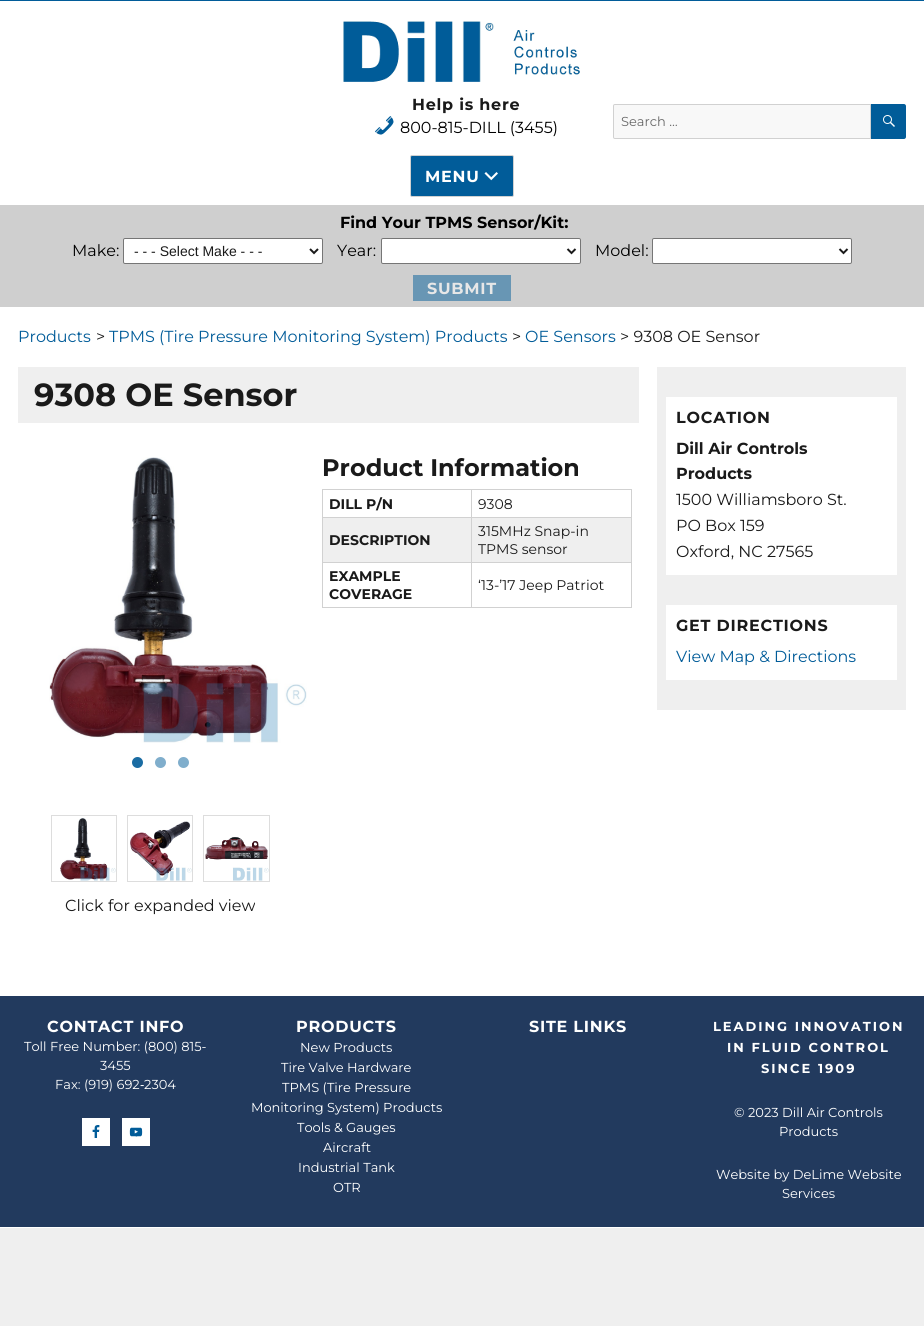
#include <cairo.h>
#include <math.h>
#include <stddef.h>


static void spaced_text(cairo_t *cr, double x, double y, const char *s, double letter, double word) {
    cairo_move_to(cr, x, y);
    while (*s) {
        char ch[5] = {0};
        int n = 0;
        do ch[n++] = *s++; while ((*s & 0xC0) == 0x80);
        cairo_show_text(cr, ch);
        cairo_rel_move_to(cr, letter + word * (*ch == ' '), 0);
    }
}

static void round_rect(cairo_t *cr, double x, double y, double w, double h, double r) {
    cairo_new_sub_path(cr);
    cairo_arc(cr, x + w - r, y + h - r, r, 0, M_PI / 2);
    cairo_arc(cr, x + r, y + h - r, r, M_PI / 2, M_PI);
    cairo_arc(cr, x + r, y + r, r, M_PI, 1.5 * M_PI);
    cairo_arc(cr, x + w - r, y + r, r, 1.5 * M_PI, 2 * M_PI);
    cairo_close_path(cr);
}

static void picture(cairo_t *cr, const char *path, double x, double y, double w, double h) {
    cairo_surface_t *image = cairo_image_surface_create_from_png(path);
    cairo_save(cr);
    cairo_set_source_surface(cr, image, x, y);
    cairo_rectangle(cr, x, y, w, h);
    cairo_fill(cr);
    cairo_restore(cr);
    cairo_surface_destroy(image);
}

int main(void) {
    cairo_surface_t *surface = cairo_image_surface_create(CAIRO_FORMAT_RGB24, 924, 1326);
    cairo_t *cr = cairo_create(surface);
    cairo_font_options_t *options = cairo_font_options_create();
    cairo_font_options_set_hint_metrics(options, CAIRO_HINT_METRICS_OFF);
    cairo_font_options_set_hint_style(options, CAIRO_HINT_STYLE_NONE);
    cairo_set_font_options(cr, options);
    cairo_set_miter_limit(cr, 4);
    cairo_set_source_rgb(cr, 0.937, 0.937, 0.937);
    cairo_paint(cr);
    cairo_set_source_rgb(cr, 1, 1, 1);
    cairo_rectangle(cr, 0, 1, 924, 995);
    cairo_fill(cr);
    cairo_set_source_rgb(cr, 0.004, 0.361, 0.6);
    cairo_rectangle(cr, 0, 0, 924, 1);
    cairo_fill(cr);
    picture(cr, "img1.png", 343, 21, 237, 61);
    cairo_select_font_face(cr, "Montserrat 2 Thin", CAIRO_FONT_SLANT_NORMAL, CAIRO_FONT_WEIGHT_NORMAL);
    cairo_set_font_size(cr, 16);
    cairo_set_source_rgb(cr, 0.102, 0.102, 0.102);
    spaced_text(cr, 412, 110, "Help is here", 0.75, 0);
    picture(cr, "img2.png", 375, 116, 19, 19);
    cairo_select_font_face(cr, "Montserrat Thin", CAIRO_FONT_SLANT_NORMAL, CAIRO_FONT_WEIGHT_NORMAL);
    cairo_set_source_rgb(cr, 0, 0, 0);
    cairo_move_to(cr, 400, 133);
    cairo_show_text(cr, "800-815-DILL (3455)");
    cairo_set_source_rgb(cr, 0.969, 0.969, 0.969);
    cairo_new_path(cr);
    cairo_move_to(cr, 615, 104.5);
    cairo_line_to(cr, 870.5, 104.5);
    cairo_line_to(cr, 870.5, 138.5);
    cairo_line_to(cr, 615, 138.5);
    cairo_curve_to(cr, 614, 138.5, 613.5, 138, 613.5, 137);
    cairo_line_to(cr, 613.5, 106);
    cairo_curve_to(cr, 613.5, 105, 614, 104.5, 615, 104.5);
    cairo_close_path(cr);
    cairo_fill_preserve(cr);
    cairo_set_source_rgb(cr, 0.82, 0.82, 0.82);
    cairo_set_line_width(cr, 1);
    cairo_stroke(cr);
    cairo_set_font_size(cr, 13);
    cairo_set_source_rgb(cr, 0.408, 0.408, 0.408);
    cairo_move_to(cr, 621, 126);
    cairo_show_text(cr, "Search …");
    cairo_set_source_rgb(cr, 0.004, 0.361, 0.6);
    cairo_new_path(cr);
    cairo_move_to(cr, 871, 104);
    cairo_line_to(cr, 904, 104);
    cairo_curve_to(cr, 905, 104, 906, 105, 906, 106);
    cairo_line_to(cr, 906, 137);
    cairo_curve_to(cr, 906, 138, 905, 139, 904, 139);
    cairo_line_to(cr, 871, 139);
    cairo_close_path(cr);
    cairo_fill(cr);
    picture(cr, "img3.png", 883, 115, 12, 12);
    round_rect(cr, 410.5, 155.5, 103, 41, 1.5);
    cairo_fill_preserve(cr);
    cairo_set_source_rgb(cr, 0.82, 0.82, 0.82);
    cairo_stroke(cr);
    cairo_select_font_face(cr, "Montserrat 2 Thin", CAIRO_FONT_SLANT_NORMAL, CAIRO_FONT_WEIGHT_NORMAL);
    cairo_set_font_size(cr, 16);
    cairo_set_source_rgb(cr, 1, 1, 1);
    spaced_text(cr, 425, 182, "MENU", 0.75, 0);
    picture(cr, "img4.png", 484, 172, 14, 9);
    cairo_set_source_rgb(cr, 0.812, 0.812, 0.812);
    cairo_rectangle(cr, 0, 205, 924, 102);
    cairo_fill(cr);
    cairo_set_source_rgb(cr, 0, 0, 0);
    cairo_move_to(cr, 340, 228);
    cairo_show_text(cr, "Find Your TPMS Sensor/Kit:");
    cairo_select_font_face(cr, "Montserrat Thin", CAIRO_FONT_SLANT_NORMAL, CAIRO_FONT_WEIGHT_NORMAL);
    cairo_move_to(cr, 72, 256);
    cairo_show_text(cr, "Make:");
    cairo_set_source_rgb(cr, 1, 1, 1);
    round_rect(cr, 123.5, 238.5, 199, 25, 1.5);
    cairo_fill_preserve(cr);
    cairo_set_source_rgb(cr, 0.463, 0.463, 0.463);
    cairo_stroke(cr);
    cairo_new_path(cr);
    cairo_move_to(cr, 310, 249);
    cairo_line_to(cr, 314, 253);
    cairo_line_to(cr, 318, 249);
    cairo_set_source_rgb(cr, 0.102, 0.102, 0.102);
    cairo_set_line_width(cr, 2);
    cairo_stroke(cr);
    cairo_select_font_face(cr, "Liberation Sans", CAIRO_FONT_SLANT_NORMAL, CAIRO_FONT_WEIGHT_NORMAL);
    cairo_set_font_size(cr, 14);
    cairo_move_to(cr, 134, 256);
    cairo_show_text(cr, "- - - Select Make - - -");
    cairo_select_font_face(cr, "Montserrat Thin", CAIRO_FONT_SLANT_NORMAL, CAIRO_FONT_WEIGHT_NORMAL);
    cairo_set_font_size(cr, 16);
    cairo_set_source_rgb(cr, 0, 0, 0);
    cairo_move_to(cr, 337, 256);
    cairo_show_text(cr, "Year:");
    cairo_set_source_rgb(cr, 1, 1, 1);
    round_rect(cr, 381.5, 238.5, 199, 25, 1.5);
    cairo_fill_preserve(cr);
    cairo_set_source_rgb(cr, 0.463, 0.463, 0.463);
    cairo_set_line_width(cr, 1);
    cairo_stroke(cr);
    cairo_new_path(cr);
    cairo_move_to(cr, 567.5, 249);
    cairo_line_to(cr, 571.5, 253);
    cairo_line_to(cr, 575.5, 249);
    cairo_set_source_rgb(cr, 0.102, 0.102, 0.102);
    cairo_set_line_width(cr, 2);
    cairo_stroke(cr);
    cairo_set_source_rgb(cr, 0, 0, 0);
    cairo_move_to(cr, 595, 256);
    cairo_show_text(cr, "Model:");
    cairo_set_source_rgb(cr, 1, 1, 1);
    round_rect(cr, 652.5, 238.5, 199, 25, 1.5);
    cairo_fill_preserve(cr);
    cairo_set_source_rgb(cr, 0.463, 0.463, 0.463);
    cairo_set_line_width(cr, 1);
    cairo_stroke(cr);
    cairo_new_path(cr);
    cairo_move_to(cr, 839.5, 249);
    cairo_line_to(cr, 843.5, 253);
    cairo_line_to(cr, 847.5, 249);
    cairo_set_source_rgb(cr, 0.102, 0.102, 0.102);
    cairo_set_line_width(cr, 2);
    cairo_stroke(cr);
    cairo_set_source_rgb(cr, 0.408, 0.588, 0.706);
    cairo_rectangle(cr, 413, 275, 98, 26);
    cairo_fill(cr);
    cairo_select_font_face(cr, "Montserrat 2 Thin", CAIRO_FONT_SLANT_NORMAL, CAIRO_FONT_WEIGHT_NORMAL);
    cairo_set_source_rgb(cr, 0.906, 0.906, 0.906);
    spaced_text(cr, 427, 294, "SUBMIT", 0.75, 0);
    cairo_select_font_face(cr, "Montserrat Thin", CAIRO_FONT_SLANT_NORMAL, CAIRO_FONT_WEIGHT_NORMAL);
    cairo_set_source_rgb(cr, 0.004, 0.361, 0.6);
    cairo_move_to(cr, 18, 342);
    cairo_show_text(cr, "Products");
    cairo_set_source_rgb(cr, 0.102, 0.102, 0.102);
    cairo_move_to(cr, 96, 342);
    cairo_show_text(cr, ">");
    cairo_set_source_rgb(cr, 0.004, 0.361, 0.6);
    cairo_move_to(cr, 109, 342);
    cairo_show_text(cr, "TPMS (Tire Pressure Monitoring System) Products");
    cairo_set_source_rgb(cr, 0.102, 0.102, 0.102);
    cairo_move_to(cr, 512, 342);
    cairo_show_text(cr, ">");
    cairo_set_source_rgb(cr, 0.004, 0.361, 0.6);
    cairo_move_to(cr, 525, 342);
    cairo_show_text(cr, "OE Sensors");
    cairo_set_source_rgb(cr, 0.102, 0.102, 0.102);
    cairo_move_to(cr, 620, 342);
    cairo_show_text(cr, "> 9308 OE Sensor");
    cairo_set_source_rgb(cr, 0.937, 0.937, 0.937);
    cairo_rectangle(cr, 18, 367, 621, 56);
    cairo_fill(cr);
    cairo_select_font_face(cr, "Montserrat 2 Thin", CAIRO_FONT_SLANT_NORMAL, CAIRO_FONT_WEIGHT_NORMAL);
    cairo_set_font_size(cr, 32);
    cairo_set_source_rgb(cr, 0.102, 0.102, 0.102);
    cairo_move_to(cr, 34, 406);
    cairo_show_text(cr, "9308 OE Sensor");
    cairo_set_font_size(cr, 24);
    cairo_move_to(cr, 322, 476);
    cairo_show_text(cr, "Product Information");
    cairo_set_source_rgb(cr, 0.82, 0.82, 0.82);
    cairo_rectangle(cr, 322, 489, 310, 1);
    cairo_fill(cr);
    cairo_rectangle(cr, 322, 489, 1, 119);
    cairo_fill(cr);
    cairo_rectangle(cr, 471, 490, 1, 28);
    cairo_fill(cr);
    cairo_rectangle(cr, 323, 517, 149, 1);
    cairo_fill(cr);
    cairo_set_font_size(cr, 14);
    cairo_set_source_rgb(cr, 0.102, 0.102, 0.102);
    cairo_move_to(cr, 329, 509);
    cairo_show_text(cr, "DILL P/N");
    cairo_set_source_rgb(cr, 0.82, 0.82, 0.82);
    cairo_rectangle(cr, 631, 490, 1, 118);
    cairo_fill(cr);
    cairo_rectangle(cr, 472, 517, 160, 1);
    cairo_fill(cr);
    cairo_select_font_face(cr, "Montserrat Thin", CAIRO_FONT_SLANT_NORMAL, CAIRO_FONT_WEIGHT_NORMAL);
    cairo_set_source_rgb(cr, 0.102, 0.102, 0.102);
    cairo_move_to(cr, 478, 509);
    cairo_show_text(cr, "9308");
    cairo_set_source_rgb(cr, 0.937, 0.937, 0.937);
    cairo_rectangle(cr, 323, 518, 308, 44);
    cairo_fill(cr);
    cairo_set_source_rgb(cr, 0.82, 0.82, 0.82);
    cairo_rectangle(cr, 471, 518, 1, 90);
    cairo_fill(cr);
    cairo_rectangle(cr, 323, 562, 309, 1);
    cairo_fill(cr);
    cairo_select_font_face(cr, "Montserrat 2 Thin", CAIRO_FONT_SLANT_NORMAL, CAIRO_FONT_WEIGHT_NORMAL);
    cairo_set_source_rgb(cr, 0.102, 0.102, 0.102);
    cairo_move_to(cr, 329, 545);
    cairo_show_text(cr, "DESCRIPTION");
    cairo_select_font_face(cr, "Montserrat Thin", CAIRO_FONT_SLANT_NORMAL, CAIRO_FONT_WEIGHT_NORMAL);
    cairo_move_to(cr, 478, 536);
    cairo_show_text(cr, "315MHz Snap-in");
    cairo_move_to(cr, 478, 554);
    cairo_show_text(cr, "TPMS sensor");
    cairo_set_source_rgb(cr, 0.82, 0.82, 0.82);
    cairo_rectangle(cr, 323, 607, 309, 1);
    cairo_fill(cr);
    cairo_select_font_face(cr, "Montserrat 2 Thin", CAIRO_FONT_SLANT_NORMAL, CAIRO_FONT_WEIGHT_NORMAL);
    cairo_set_source_rgb(cr, 0.102, 0.102, 0.102);
    cairo_move_to(cr, 329, 581);
    cairo_show_text(cr, "EXAMPLE");
    cairo_move_to(cr, 329, 599);
    cairo_show_text(cr, "COVERAGE");
    cairo_select_font_face(cr, "Montserrat Thin", CAIRO_FONT_SLANT_NORMAL, CAIRO_FONT_WEIGHT_NORMAL);
    cairo_move_to(cr, 478, 590);
    cairo_show_text(cr, "‘13-’17 Jeep Patriot");
    picture(cr, "img5.png", 49, 457, 258, 286);
    cairo_set_source_rgb(cr, 0.102, 0.424, 0.639);
    cairo_arc(cr, 137.5, 762.5, 5.5, 0, 2 * M_PI);
    cairo_fill(cr);
    cairo_set_source_rgb(cr, 0.502, 0.682, 0.8);
    cairo_arc(cr, 160.5, 762.5, 5.5, 0, 2 * M_PI);
    cairo_fill(cr);
    cairo_arc(cr, 183.5, 762.5, 5.5, 0, 2 * M_PI);
    cairo_fill(cr);
    cairo_rectangle(cr, 51.5, 815.5, 65, 66);
    cairo_set_source_rgb(cr, 0.867, 0.867, 0.867);
    cairo_set_line_width(cr, 1);
    cairo_stroke(cr);
    picture(cr, "img6.png", 60, 818, 56, 63);
    cairo_rectangle(cr, 127.5, 815.5, 65, 66);
    cairo_stroke(cr);
    picture(cr, "img7.png", 130, 821, 62, 60);
    cairo_rectangle(cr, 203.5, 815.5, 66, 66);
    cairo_stroke(cr);
    picture(cr, "img8.png", 205, 837, 64, 44);
    cairo_set_font_size(cr, 16);
    cairo_set_source_rgb(cr, 0.102, 0.102, 0.102);
    cairo_move_to(cr, 65, 911);
    cairo_show_text(cr, "Click for expanded view");
    cairo_set_source_rgb(cr, 0.937, 0.937, 0.937);
    cairo_rectangle(cr, 657, 367, 249, 343);
    cairo_fill(cr);
    cairo_set_source_rgb(cr, 1, 1, 1);
    cairo_rectangle(cr, 666, 397, 231, 178);
    cairo_fill(cr);
    cairo_select_font_face(cr, "Montserrat 2 Thin", CAIRO_FONT_SLANT_NORMAL, CAIRO_FONT_WEIGHT_NORMAL);
    cairo_set_source_rgb(cr, 0.102, 0.102, 0.102);
    spaced_text(cr, 676, 423, "LOCATION", 0.75, 0);
    cairo_move_to(cr, 676, 454);
    cairo_show_text(cr, "Dill Air Controls");
    cairo_move_to(cr, 676, 479);
    cairo_show_text(cr, "Products");
    cairo_select_font_face(cr, "Montserrat Thin", CAIRO_FONT_SLANT_NORMAL, CAIRO_FONT_WEIGHT_NORMAL);
    cairo_move_to(cr, 676, 505);
    cairo_show_text(cr, "1500 Williamsboro St.");
    cairo_move_to(cr, 676, 531);
    cairo_show_text(cr, "PO Box 159");
    cairo_move_to(cr, 676, 557);
    cairo_show_text(cr, "Oxford, NC 27565");
    cairo_set_source_rgb(cr, 1, 1, 1);
    cairo_rectangle(cr, 666, 605, 231, 75);
    cairo_fill(cr);
    cairo_select_font_face(cr, "Montserrat 2 Thin", CAIRO_FONT_SLANT_NORMAL, CAIRO_FONT_WEIGHT_NORMAL);
    cairo_set_source_rgb(cr, 0.102, 0.102, 0.102);
    spaced_text(cr, 676, 631, "GET DIRECTIONS", 0.75, 0);
    cairo_select_font_face(cr, "Montserrat Thin", CAIRO_FONT_SLANT_NORMAL, CAIRO_FONT_WEIGHT_NORMAL);
    cairo_set_source_rgb(cr, 0.004, 0.361, 0.6);
    cairo_move_to(cr, 676, 662);
    cairo_show_text(cr, "View Map & Directions");
    cairo_set_source_rgb(cr, 0.133, 0.227, 0.369);
    cairo_rectangle(cr, 0, 996, 924, 231);
    cairo_fill(cr);
    cairo_select_font_face(cr, "Montserrat 2 Thin", CAIRO_FONT_SLANT_NORMAL, CAIRO_FONT_WEIGHT_NORMAL);
    cairo_set_source_rgb(cr, 1, 1, 1);
    spaced_text(cr, 47, 1032, "CONTACT INFO", 0.75, 0);
    cairo_select_font_face(cr, "Montserrat Thin", CAIRO_FONT_SLANT_NORMAL, CAIRO_FONT_WEIGHT_NORMAL);
    cairo_set_font_size(cr, 13);
    cairo_move_to(cr, 24, 1051);
    cairo_show_text(cr, "Toll Free Number: (800) 815-");
    cairo_move_to(cr, 100, 1070);
    cairo_show_text(cr, "3455");
    cairo_move_to(cr, 55, 1089);
    cairo_show_text(cr, "Fax: (919) 692");
    cairo_select_font_face(cr, "Liberation Sans", CAIRO_FONT_SLANT_NORMAL, CAIRO_FONT_WEIGHT_NORMAL);
    cairo_move_to(cr, 140, 1089);
    cairo_show_text(cr, "‐");
    cairo_select_font_face(cr, "Montserrat Thin", CAIRO_FONT_SLANT_NORMAL, CAIRO_FONT_WEIGHT_NORMAL);
    cairo_move_to(cr, 144, 1089);
    cairo_show_text(cr, "2304");
    cairo_rectangle(cr, 82, 1118, 28, 28);
    cairo_fill(cr);
    picture(cr, "img9.png", 92, 1125, 8, 13);
    cairo_rectangle(cr, 122, 1118, 28, 28);
    cairo_fill(cr);
    picture(cr, "img10.png", 129, 1127, 14, 10);
    cairo_select_font_face(cr, "Montserrat 2 Thin", CAIRO_FONT_SLANT_NORMAL, CAIRO_FONT_WEIGHT_NORMAL);
    cairo_set_font_size(cr, 16);
    spaced_text(cr, 296, 1032, "PRODUCTS", 0.75, 0);
    cairo_select_font_face(cr, "Montserrat Thin", CAIRO_FONT_SLANT_NORMAL, CAIRO_FONT_WEIGHT_NORMAL);
    cairo_set_font_size(cr, 13);
    cairo_move_to(cr, 300, 1052);
    cairo_show_text(cr, "New Products");
    cairo_move_to(cr, 281, 1072);
    cairo_show_text(cr, "Tire Valve Hardware");
    cairo_move_to(cr, 282, 1092);
    cairo_show_text(cr, "TPMS (Tire Pressure");
    cairo_move_to(cr, 251, 1112);
    cairo_show_text(cr, "Monitoring System) Products");
    cairo_move_to(cr, 297, 1132);
    cairo_show_text(cr, "Tools & Gauges");
    cairo_move_to(cr, 323, 1152);
    cairo_show_text(cr, "Aircraft");
    cairo_move_to(cr, 298, 1172);
    cairo_show_text(cr, "Industrial Tank");
    cairo_move_to(cr, 333, 1192);
    cairo_show_text(cr, "OTR");
    cairo_select_font_face(cr, "Montserrat 2 Thin", CAIRO_FONT_SLANT_NORMAL, CAIRO_FONT_WEIGHT_NORMAL);
    cairo_set_font_size(cr, 16);
    spaced_text(cr, 529, 1032, "SITE LINKS", 0.75, 0);
    cairo_set_font_size(cr, 13);
    spaced_text(cr, 713, 1031, "LEADING INNOVATION", 2, 0);
    spaced_text(cr, 727, 1052, "IN FLUID CONTROL", 2, 0);
    spaced_text(cr, 761, 1073, "SINCE 1909", 2, 0);
    cairo_select_font_face(cr, "Montserrat Thin", CAIRO_FONT_SLANT_NORMAL, CAIRO_FONT_WEIGHT_NORMAL);
    cairo_move_to(cr, 734, 1117);
    cairo_show_text(cr, "© 2023 Dill Air Controls");
    cairo_move_to(cr, 779, 1136);
    cairo_show_text(cr, "Products");
    cairo_move_to(cr, 716, 1179);
    cairo_show_text(cr, "Website by DeLime Website");
    cairo_move_to(cr, 782, 1198);
    cairo_show_text(cr, "Services");
    cairo_rectangle(cr, 0, 1227, 924, 1);
    cairo_fill(cr);
    cairo_surface_write_to_png(surface, "page.png");
    cairo_font_options_destroy(options);
    cairo_destroy(cr);
    cairo_surface_destroy(surface);
    return 0;
}
